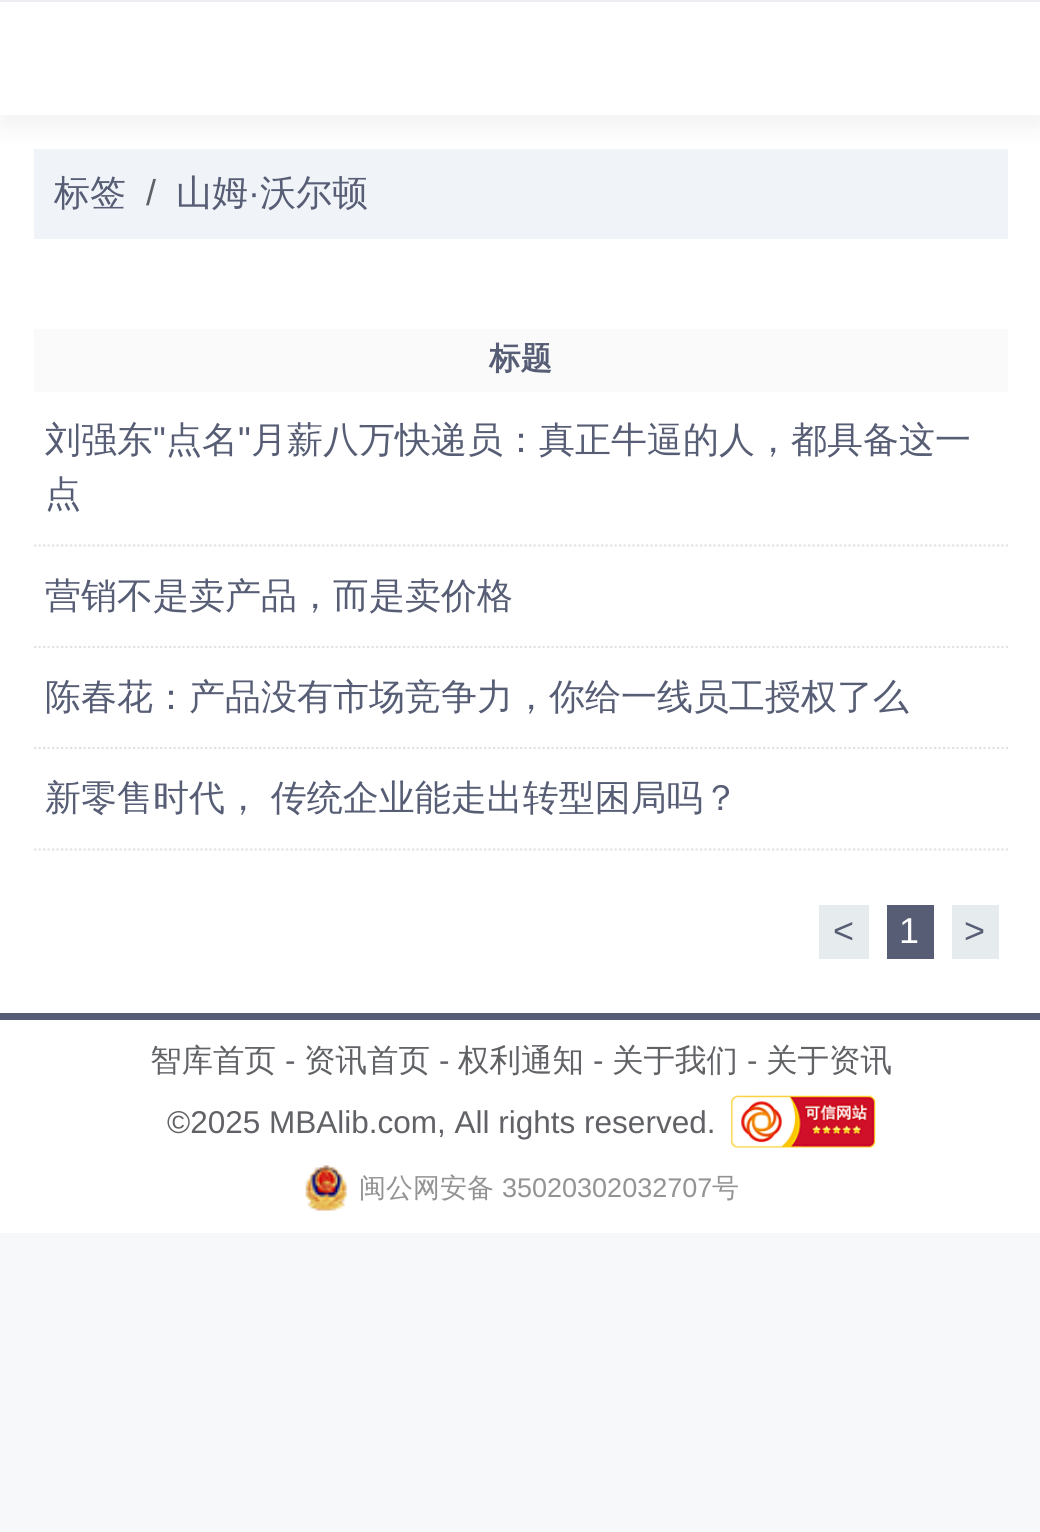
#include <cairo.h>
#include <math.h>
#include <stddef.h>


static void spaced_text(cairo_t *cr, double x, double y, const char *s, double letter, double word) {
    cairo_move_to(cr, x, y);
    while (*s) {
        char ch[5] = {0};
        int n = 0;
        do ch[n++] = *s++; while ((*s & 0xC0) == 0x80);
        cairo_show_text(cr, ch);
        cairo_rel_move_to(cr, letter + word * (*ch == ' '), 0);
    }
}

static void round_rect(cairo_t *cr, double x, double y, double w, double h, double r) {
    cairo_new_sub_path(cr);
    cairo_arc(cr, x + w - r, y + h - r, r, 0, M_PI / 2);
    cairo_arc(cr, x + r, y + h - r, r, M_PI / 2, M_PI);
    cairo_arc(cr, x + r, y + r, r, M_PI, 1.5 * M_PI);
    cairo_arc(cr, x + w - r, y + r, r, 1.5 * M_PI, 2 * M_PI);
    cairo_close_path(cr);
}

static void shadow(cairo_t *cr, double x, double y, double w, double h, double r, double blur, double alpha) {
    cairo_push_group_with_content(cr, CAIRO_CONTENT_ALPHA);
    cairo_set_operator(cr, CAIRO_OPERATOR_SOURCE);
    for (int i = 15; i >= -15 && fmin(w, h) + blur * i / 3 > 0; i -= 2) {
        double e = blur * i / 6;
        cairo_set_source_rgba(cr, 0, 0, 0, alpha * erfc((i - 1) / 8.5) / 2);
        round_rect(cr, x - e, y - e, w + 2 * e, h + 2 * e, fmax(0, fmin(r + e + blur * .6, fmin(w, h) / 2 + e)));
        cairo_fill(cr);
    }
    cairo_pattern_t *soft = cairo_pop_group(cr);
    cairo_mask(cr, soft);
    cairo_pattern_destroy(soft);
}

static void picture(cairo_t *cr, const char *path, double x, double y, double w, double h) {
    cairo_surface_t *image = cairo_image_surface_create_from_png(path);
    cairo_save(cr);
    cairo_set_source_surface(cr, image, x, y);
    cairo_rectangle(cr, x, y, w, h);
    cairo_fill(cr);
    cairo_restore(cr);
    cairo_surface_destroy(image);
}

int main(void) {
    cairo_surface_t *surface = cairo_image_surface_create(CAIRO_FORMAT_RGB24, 1040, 1532);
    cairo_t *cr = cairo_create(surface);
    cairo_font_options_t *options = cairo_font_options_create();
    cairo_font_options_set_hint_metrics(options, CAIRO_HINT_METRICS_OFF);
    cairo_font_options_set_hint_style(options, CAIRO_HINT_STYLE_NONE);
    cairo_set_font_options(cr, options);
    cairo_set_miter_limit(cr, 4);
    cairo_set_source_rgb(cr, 0.961, 0.969, 0.98);
    cairo_paint(cr);
    cairo_set_source_rgb(cr, 0.929, 0.937, 0.949);
    cairo_rectangle(cr, 0, 0, 1040, 2);
    cairo_fill(cr);
    cairo_set_source_rgb(cr, 1, 1, 1);
    cairo_rectangle(cr, 0, 115, 1040, 898);
    cairo_fill(cr);
    cairo_set_source_rgb(cr, 0.941, 0.957, 0.969);
    cairo_rectangle(cr, 34, 149, 974, 90);
    cairo_fill(cr);
    cairo_set_source_rgb(cr, 0, 0, 0);
    shadow(cr, 0, 16, 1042, 112, 0, 11, 0.05);
    cairo_set_source_rgb(cr, 1, 1, 1);
    cairo_rectangle(cr, 0, 2, 1040, 113);
    cairo_fill(cr);
    cairo_select_font_face(cr, "WenQuanYi Zen Hei Medium", CAIRO_FONT_SLANT_NORMAL, CAIRO_FONT_WEIGHT_NORMAL);
    cairo_set_font_size(cr, 36);
    cairo_set_source_rgb(cr, 0.337, 0.365, 0.455);
    cairo_move_to(cr, 54, 205);
    cairo_show_text(cr, "标签");
    cairo_select_font_face(cr, "Liberation Sans", CAIRO_FONT_SLANT_NORMAL, CAIRO_FONT_WEIGHT_NORMAL);
    cairo_set_source_rgb(cr, 0.376, 0.384, 0.4);
    cairo_move_to(cr, 146, 205);
    cairo_show_text(cr, "/");
    cairo_select_font_face(cr, "WenQuanYi Zen Hei Medium", CAIRO_FONT_SLANT_NORMAL, CAIRO_FONT_WEIGHT_NORMAL);
    cairo_set_source_rgb(cr, 0.337, 0.365, 0.455);
    cairo_move_to(cr, 176, 205);
    cairo_show_text(cr, "山姆");
    cairo_select_font_face(cr, "Liberation Sans", CAIRO_FONT_SLANT_NORMAL, CAIRO_FONT_WEIGHT_NORMAL);
    cairo_move_to(cr, 248, 205);
    cairo_show_text(cr, "·");
    cairo_select_font_face(cr, "WenQuanYi Zen Hei Medium", CAIRO_FONT_SLANT_NORMAL, CAIRO_FONT_WEIGHT_NORMAL);
    cairo_move_to(cr, 260, 205);
    cairo_show_text(cr, "沃尔顿");
    cairo_set_source_rgb(cr, 0.98, 0.98, 0.98);
    cairo_rectangle(cr, 34, 329, 974, 63);
    cairo_fill(cr);
    cairo_select_font_face(cr, "WenQuanYi Zen Hei", CAIRO_FONT_SLANT_NORMAL, CAIRO_FONT_WEIGHT_BOLD);
    cairo_set_font_size(cr, 31.5);
    cairo_set_source_rgb(cr, 0.337, 0.365, 0.455);
    cairo_move_to(cr, 489, 369);
    cairo_show_text(cr, "标题");
    cairo_new_path(cr);
    cairo_move_to(cr, 34, 545.5);
    cairo_line_to(cr, 1008, 545.5);
    cairo_set_source_rgb(cr, 0.89, 0.89, 0.89);
    cairo_set_line_width(cr, 2.2);
    cairo_set_dash(cr, (double[]){2.25, 2.25}, 2, 0);
    cairo_stroke(cr);
    cairo_select_font_face(cr, "WenQuanYi Zen Hei Medium", CAIRO_FONT_SLANT_NORMAL, CAIRO_FONT_WEIGHT_NORMAL);
    cairo_set_font_size(cr, 36);
    cairo_set_source_rgb(cr, 0.337, 0.365, 0.455);
    cairo_move_to(cr, 45, 452);
    cairo_show_text(cr, "刘强东");
    cairo_select_font_face(cr, "Liberation Sans", CAIRO_FONT_SLANT_NORMAL, CAIRO_FONT_WEIGHT_NORMAL);
    cairo_move_to(cr, 153, 452);
    cairo_show_text(cr, "\"");
    cairo_select_font_face(cr, "WenQuanYi Zen Hei Medium", CAIRO_FONT_SLANT_NORMAL, CAIRO_FONT_WEIGHT_NORMAL);
    cairo_move_to(cr, 166, 452);
    cairo_show_text(cr, "点名");
    cairo_select_font_face(cr, "Liberation Sans", CAIRO_FONT_SLANT_NORMAL, CAIRO_FONT_WEIGHT_NORMAL);
    cairo_move_to(cr, 238, 452);
    cairo_show_text(cr, "\"");
    cairo_select_font_face(cr, "WenQuanYi Zen Hei Medium", CAIRO_FONT_SLANT_NORMAL, CAIRO_FONT_WEIGHT_NORMAL);
    cairo_move_to(cr, 251, 452);
    cairo_show_text(cr, "月薪八万快递员：真正牛逼的人，都具备这一");
    cairo_move_to(cr, 45, 506);
    cairo_show_text(cr, "点");
    cairo_new_path(cr);
    cairo_move_to(cr, 34, 647);
    cairo_line_to(cr, 1008, 647);
    cairo_set_source_rgb(cr, 0.89, 0.89, 0.89);
    cairo_stroke(cr);
    cairo_set_source_rgb(cr, 0.337, 0.365, 0.455);
    cairo_move_to(cr, 45, 608);
    cairo_show_text(cr, "营销不是卖产品，而是卖价格");
    cairo_new_path(cr);
    cairo_move_to(cr, 34, 748);
    cairo_line_to(cr, 1008, 748);
    cairo_set_source_rgb(cr, 0.89, 0.89, 0.89);
    cairo_stroke(cr);
    cairo_set_source_rgb(cr, 0.337, 0.365, 0.455);
    cairo_move_to(cr, 45, 709);
    cairo_show_text(cr, "陈春花：产品没有市场竞争力，你给一线员工授权了么");
    cairo_new_path(cr);
    cairo_move_to(cr, 34, 849.5);
    cairo_line_to(cr, 1008, 849.5);
    cairo_set_source_rgb(cr, 0.89, 0.89, 0.89);
    cairo_stroke(cr);
    cairo_set_source_rgb(cr, 0.337, 0.365, 0.455);
    spaced_text(cr, 45, 810, "新零售时代， 传统企业能走出转型困局吗？", 0, -1);
    cairo_set_source_rgb(cr, 0.902, 0.918, 0.929);
    cairo_rectangle(cr, 819, 905, 50, 54);
    cairo_fill(cr);
    cairo_select_font_face(cr, "Liberation Sans", CAIRO_FONT_SLANT_NORMAL, CAIRO_FONT_WEIGHT_NORMAL);
    cairo_set_source_rgb(cr, 0.337, 0.365, 0.455);
    cairo_move_to(cr, 833, 943);
    cairo_show_text(cr, "<");
    cairo_rectangle(cr, 887, 905, 47, 54);
    cairo_fill(cr);
    cairo_set_source_rgb(cr, 1, 1, 1);
    cairo_move_to(cr, 899, 943);
    cairo_show_text(cr, "1");
    cairo_set_source_rgb(cr, 0.902, 0.918, 0.929);
    cairo_rectangle(cr, 952, 905, 47, 54);
    cairo_fill(cr);
    cairo_set_source_rgb(cr, 0.337, 0.365, 0.455);
    cairo_move_to(cr, 964, 943);
    cairo_show_text(cr, ">");
    cairo_set_source_rgb(cr, 1, 1, 1);
    cairo_rectangle(cr, 0, 1020, 1040, 213);
    cairo_fill(cr);
    cairo_set_source_rgb(cr, 0.337, 0.365, 0.455);
    cairo_rectangle(cr, 0, 1013, 1040, 7);
    cairo_fill(cr);
    cairo_select_font_face(cr, "WenQuanYi Zen Hei Medium", CAIRO_FONT_SLANT_NORMAL, CAIRO_FONT_WEIGHT_NORMAL);
    cairo_set_font_size(cr, 31.5);
    cairo_set_source_rgb(cr, 0.376, 0.384, 0.4);
    cairo_move_to(cr, 150, 1071);
    cairo_show_text(cr, "智库首页");
    cairo_select_font_face(cr, "Liberation Sans", CAIRO_FONT_SLANT_NORMAL, CAIRO_FONT_WEIGHT_NORMAL);
    cairo_move_to(cr, 285, 1071);
    cairo_show_text(cr, "-");
    cairo_select_font_face(cr, "WenQuanYi Zen Hei Medium", CAIRO_FONT_SLANT_NORMAL, CAIRO_FONT_WEIGHT_NORMAL);
    cairo_move_to(cr, 304, 1071);
    cairo_show_text(cr, "资讯首页");
    cairo_select_font_face(cr, "Liberation Sans", CAIRO_FONT_SLANT_NORMAL, CAIRO_FONT_WEIGHT_NORMAL);
    cairo_move_to(cr, 439, 1071);
    cairo_show_text(cr, "-");
    cairo_select_font_face(cr, "WenQuanYi Zen Hei Medium", CAIRO_FONT_SLANT_NORMAL, CAIRO_FONT_WEIGHT_NORMAL);
    cairo_move_to(cr, 458, 1071);
    cairo_show_text(cr, "权利通知");
    cairo_select_font_face(cr, "Liberation Sans", CAIRO_FONT_SLANT_NORMAL, CAIRO_FONT_WEIGHT_NORMAL);
    cairo_move_to(cr, 593, 1071);
    cairo_show_text(cr, "-");
    cairo_select_font_face(cr, "WenQuanYi Zen Hei Medium", CAIRO_FONT_SLANT_NORMAL, CAIRO_FONT_WEIGHT_NORMAL);
    cairo_move_to(cr, 612, 1071);
    cairo_show_text(cr, "关于我们");
    cairo_select_font_face(cr, "Liberation Sans", CAIRO_FONT_SLANT_NORMAL, CAIRO_FONT_WEIGHT_NORMAL);
    cairo_move_to(cr, 747, 1071);
    cairo_show_text(cr, "-");
    cairo_select_font_face(cr, "WenQuanYi Zen Hei Medium", CAIRO_FONT_SLANT_NORMAL, CAIRO_FONT_WEIGHT_NORMAL);
    cairo_move_to(cr, 766, 1071);
    cairo_show_text(cr, "关于资讯");
    cairo_select_font_face(cr, "Liberation Sans", CAIRO_FONT_SLANT_NORMAL, CAIRO_FONT_WEIGHT_NORMAL);
    cairo_move_to(cr, 167, 1133);
    cairo_show_text(cr, "©2025 MBAlib.com, All rights reserved.");
    picture(cr, "img1.png", 731, 1095, 145, 53);
    picture(cr, "img2.png", 305, 1165, 43, 46);
    cairo_select_font_face(cr, "WenQuanYi Zen Hei Medium", CAIRO_FONT_SLANT_NORMAL, CAIRO_FONT_WEIGHT_NORMAL);
    cairo_set_font_size(cr, 27);
    cairo_set_source_rgb(cr, 0.576, 0.576, 0.576);
    cairo_move_to(cr, 359, 1197);
    cairo_show_text(cr, "闽公网安备");
    cairo_select_font_face(cr, "Liberation Sans", CAIRO_FONT_SLANT_NORMAL, CAIRO_FONT_WEIGHT_NORMAL);
    cairo_move_to(cr, 502, 1197);
    cairo_show_text(cr, "35020302032707");
    cairo_select_font_face(cr, "WenQuanYi Zen Hei Medium", CAIRO_FONT_SLANT_NORMAL, CAIRO_FONT_WEIGHT_NORMAL);
    cairo_move_to(cr, 712, 1197);
    cairo_show_text(cr, "号");
    cairo_surface_write_to_png(surface, "page.png");
    cairo_font_options_destroy(options);
    cairo_destroy(cr);
    cairo_surface_destroy(surface);
    return 0;
}
